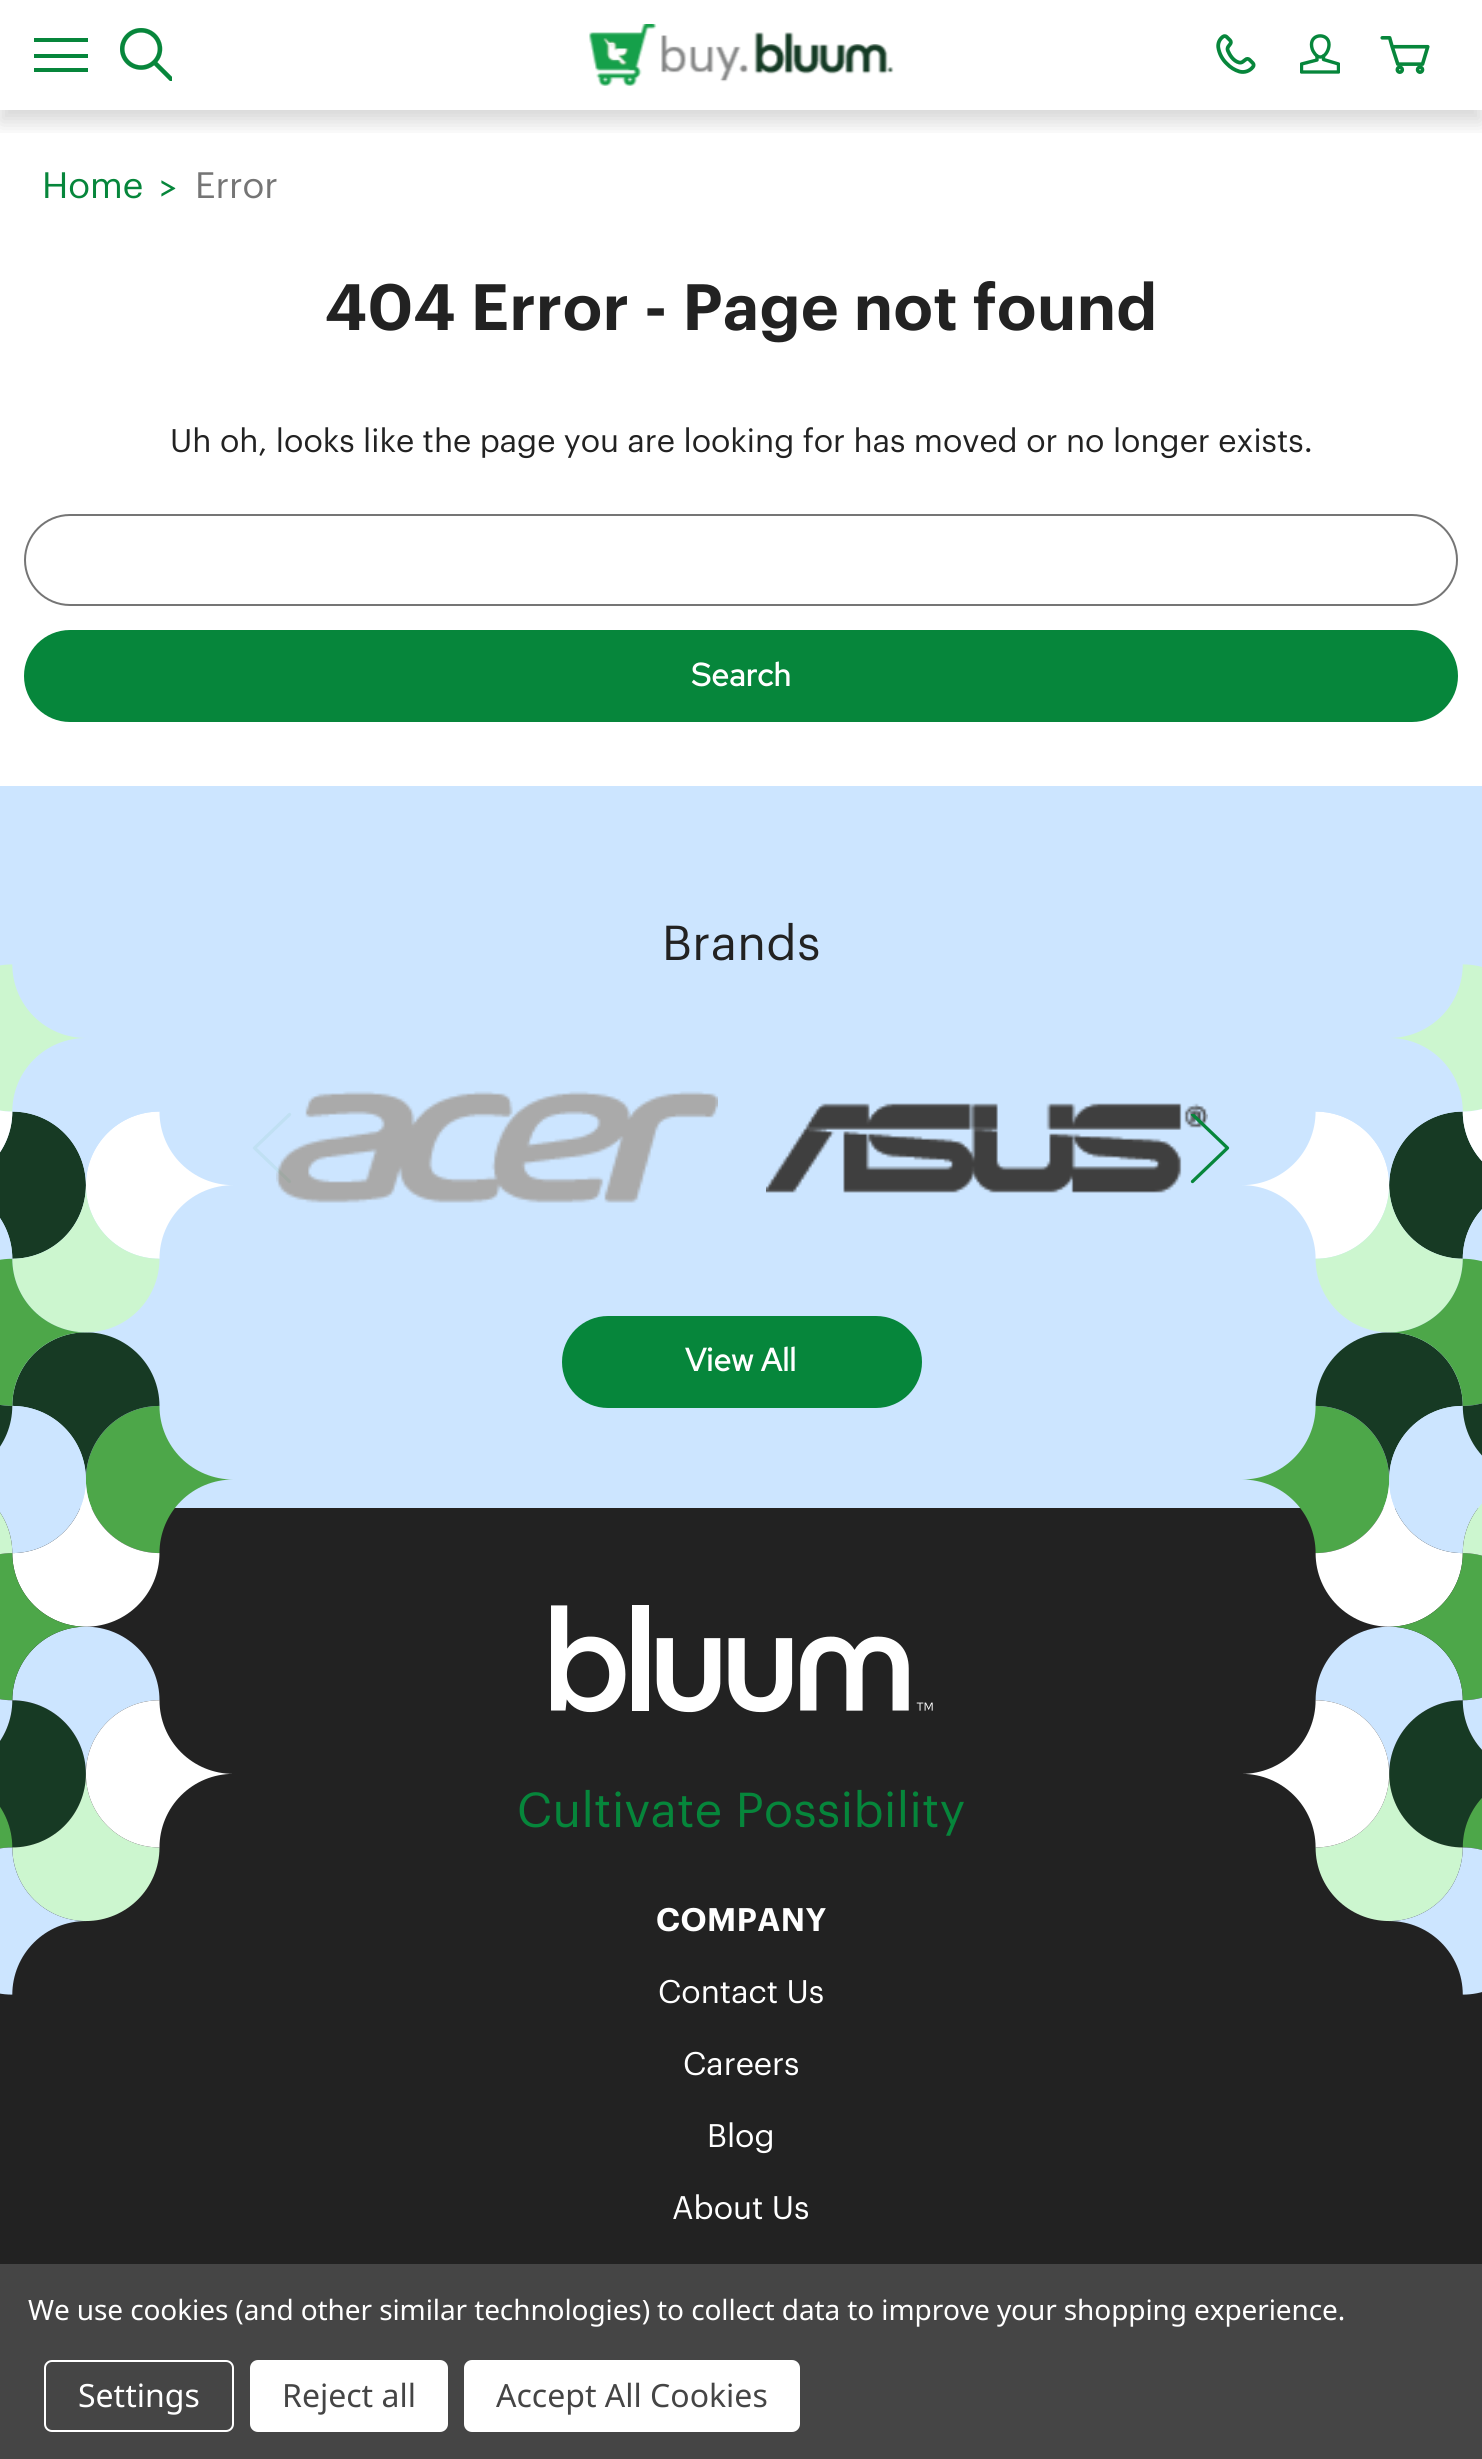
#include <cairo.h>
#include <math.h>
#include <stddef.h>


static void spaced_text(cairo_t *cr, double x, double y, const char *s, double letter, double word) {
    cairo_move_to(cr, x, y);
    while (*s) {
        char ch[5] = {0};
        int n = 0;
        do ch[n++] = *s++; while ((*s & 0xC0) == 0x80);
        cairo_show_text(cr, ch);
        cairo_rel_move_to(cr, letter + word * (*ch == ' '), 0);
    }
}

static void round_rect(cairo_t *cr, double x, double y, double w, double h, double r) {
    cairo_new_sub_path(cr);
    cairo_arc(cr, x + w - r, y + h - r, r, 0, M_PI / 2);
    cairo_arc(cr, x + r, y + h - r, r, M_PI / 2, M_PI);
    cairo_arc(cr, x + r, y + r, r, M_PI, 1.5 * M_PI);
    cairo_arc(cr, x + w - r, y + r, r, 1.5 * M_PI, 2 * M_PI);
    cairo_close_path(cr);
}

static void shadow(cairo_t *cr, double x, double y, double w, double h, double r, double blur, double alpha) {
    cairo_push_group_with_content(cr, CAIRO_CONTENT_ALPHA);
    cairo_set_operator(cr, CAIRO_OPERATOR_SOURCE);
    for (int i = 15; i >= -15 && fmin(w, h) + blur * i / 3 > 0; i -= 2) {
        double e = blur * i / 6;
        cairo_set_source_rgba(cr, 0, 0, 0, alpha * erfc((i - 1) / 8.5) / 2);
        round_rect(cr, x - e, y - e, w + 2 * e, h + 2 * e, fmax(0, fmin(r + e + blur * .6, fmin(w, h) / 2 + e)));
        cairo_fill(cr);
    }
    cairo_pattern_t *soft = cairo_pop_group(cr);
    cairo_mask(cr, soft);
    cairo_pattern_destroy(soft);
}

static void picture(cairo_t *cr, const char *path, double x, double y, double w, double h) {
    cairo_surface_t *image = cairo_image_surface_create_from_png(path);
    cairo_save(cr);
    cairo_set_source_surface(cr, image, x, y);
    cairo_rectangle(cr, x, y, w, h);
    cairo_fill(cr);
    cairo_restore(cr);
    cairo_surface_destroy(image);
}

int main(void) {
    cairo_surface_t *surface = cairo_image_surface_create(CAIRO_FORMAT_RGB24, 1482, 2459);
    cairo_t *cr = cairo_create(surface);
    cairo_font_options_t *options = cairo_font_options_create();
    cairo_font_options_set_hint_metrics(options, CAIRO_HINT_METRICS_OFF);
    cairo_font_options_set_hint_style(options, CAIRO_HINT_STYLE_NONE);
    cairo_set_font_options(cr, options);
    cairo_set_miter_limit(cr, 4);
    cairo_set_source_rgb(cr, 1, 1, 1);
    cairo_paint(cr);
    cairo_save(cr);
    cairo_rectangle(cr, 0, 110, 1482, 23);
    cairo_clip(cr);
    cairo_set_source_rgb(cr, 0, 0, 0);
    shadow(cr, 0, 12, 1482, 110, 0, 10, 0.16);
    cairo_restore(cr);
    cairo_set_source_rgb(cr, 0.027, 0.525, 0.231);
    cairo_rectangle(cr, 34, 38, 54, 4);
    cairo_fill(cr);
    cairo_rectangle(cr, 34, 54, 54, 4);
    cairo_fill(cr);
    cairo_rectangle(cr, 34, 68, 54, 4);
    cairo_fill(cr);
    picture(cr, "img1.png", 120, 28, 52, 53);
    picture(cr, "img2.png", 589, 24, 305, 62);
    picture(cr, "img3.png", 1216, 34, 40, 40);
    cairo_new_path(cr);
    cairo_move_to(cr, 1329, 44.5);
    cairo_curve_to(cr, 1329, 53, 1320.5, 63, 1314, 52.5);
    cairo_curve_to(cr, 1312.5, 50.5, 1311.5, 47.5, 1311.5, 44.5);
    cairo_curve_to(cr, 1311.5, 33, 1329, 33, 1329, 44.5);
    cairo_close_path(cr);
    cairo_set_line_width(cr, 3.4);
    cairo_set_line_cap(cr, CAIRO_LINE_CAP_ROUND);
    cairo_set_line_join(cr, CAIRO_LINE_JOIN_ROUND);
    cairo_stroke(cr);
    cairo_save(cr);
    cairo_rectangle(cr, 1300, 34, 40, 40);
    cairo_clip(cr);
    cairo_new_path(cr);
    cairo_move_to(cr, 1317, 56);
    cairo_line_to(cr, 1317, 60);
    cairo_line_to(cr, 1301.5, 64);
    cairo_line_to(cr, 1301.5, 72);
    cairo_line_to(cr, 1338.5, 72);
    cairo_line_to(cr, 1338.5, 64);
    cairo_line_to(cr, 1323.5, 59.5);
    cairo_line_to(cr, 1323.5, 56);
    cairo_stroke(cr);
    cairo_restore(cr);
    picture(cr, "img4.png", 1380, 36, 50, 38);
    cairo_select_font_face(cr, "Graphik", CAIRO_FONT_SLANT_NORMAL, CAIRO_FONT_WEIGHT_NORMAL);
    cairo_set_font_size(cr, 36);
    cairo_move_to(cr, 42, 198);
    cairo_show_text(cr, "Home");
    cairo_move_to(cr, 159, 200);
    cairo_show_text(cr, ">");
    cairo_set_source_rgb(cr, 0.459, 0.459, 0.459);
    cairo_move_to(cr, 195, 198);
    cairo_show_text(cr, "Error");
    cairo_select_font_face(cr, "Graphik SemiBold", CAIRO_FONT_SLANT_NORMAL, CAIRO_FONT_WEIGHT_NORMAL);
    cairo_set_font_size(cr, 64);
    cairo_set_source_rgb(cr, 0.133, 0.133, 0.133);
    spaced_text(cr, 325, 330, "404 Error - Page not found", 0.5, 0);
    cairo_select_font_face(cr, "Graphik", CAIRO_FONT_SLANT_NORMAL, CAIRO_FONT_WEIGHT_NORMAL);
    cairo_set_font_size(cr, 32);
    cairo_move_to(cr, 170, 452);
    cairo_show_text(cr, "Uh oh, looks like the page you are looking for has moved or no longer exists.");
    round_rect(cr, 25, 515, 1432, 90, 45);
    cairo_set_source_rgb(cr, 0.459, 0.459, 0.459);
    cairo_set_line_width(cr, 2);
    cairo_set_line_cap(cr, CAIRO_LINE_CAP_BUTT);
    cairo_set_line_join(cr, CAIRO_LINE_JOIN_MITER);
    cairo_stroke(cr);
    cairo_set_source_rgb(cr, 0.027, 0.525, 0.231);
    round_rect(cr, 25, 631, 1432, 90, 45);
    cairo_fill_preserve(cr);
    cairo_stroke(cr);
    cairo_select_font_face(cr, "Red Hat Text", CAIRO_FONT_SLANT_NORMAL, CAIRO_FONT_WEIGHT_BOLD);
    cairo_set_source_rgb(cr, 1, 1, 1);
    cairo_move_to(cr, 691, 686);
    cairo_show_text(cr, "Search");
    cairo_set_source_rgb(cr, 0.8, 0.898, 1);
    cairo_rectangle(cr, 0, 786, 1482, 722);
    cairo_fill(cr);
    cairo_select_font_face(cr, "Graphik", CAIRO_FONT_SLANT_NORMAL, CAIRO_FONT_WEIGHT_NORMAL);
    cairo_set_font_size(cr, 48);
    cairo_set_source_rgb(cr, 0.133, 0.133, 0.133);
    spaced_text(cr, 662, 960, "Brands", 0.5, 0);
    picture(cr, "img5.png", 276, 1091, 442, 112);
    cairo_new_path(cr);
    cairo_move_to(cr, 289.5, 1114.5);
    cairo_line_to(cr, 254.5, 1148);
    cairo_line_to(cr, 289.5, 1181.5);
    cairo_set_source_rgba(cr, 0.027, 0.525, 0.231, 0.06);
    cairo_set_line_width(cr, 3.3);
    cairo_set_line_cap(cr, CAIRO_LINE_CAP_ROUND);
    cairo_set_line_join(cr, CAIRO_LINE_JOIN_ROUND);
    cairo_stroke(cr);
    picture(cr, "img6.png", 766, 1103, 442, 90);
    cairo_save(cr);
    cairo_rectangle(cr, 1190, 1114, 40, 70);
    cairo_clip(cr);
    cairo_new_path(cr);
    cairo_move_to(cr, 1192.5, 1114.5);
    cairo_line_to(cr, 1227.5, 1148);
    cairo_line_to(cr, 1192.5, 1181.5);
    cairo_set_source_rgb(cr, 0.027, 0.525, 0.231);
    cairo_stroke(cr);
    cairo_restore(cr);
    cairo_set_source_rgb(cr, 0.027, 0.525, 0.231);
    round_rect(cr, 563, 1317, 358, 90, 45);
    cairo_fill_preserve(cr);
    cairo_set_line_width(cr, 2);
    cairo_set_line_cap(cr, CAIRO_LINE_CAP_BUTT);
    cairo_set_line_join(cr, CAIRO_LINE_JOIN_MITER);
    cairo_stroke(cr);
    cairo_select_font_face(cr, "Red Hat Text", CAIRO_FONT_SLANT_NORMAL, CAIRO_FONT_WEIGHT_BOLD);
    cairo_set_font_size(cr, 32);
    cairo_set_source_rgb(cr, 1, 1, 1);
    cairo_move_to(cr, 685, 1371);
    cairo_show_text(cr, "View All");
    cairo_set_source_rgb(cr, 0.133, 0.133, 0.133);
    cairo_rectangle(cr, 0, 1508, 1482, 756);
    cairo_fill(cr);
    picture(cr, "img7.png", 0, 964, 233, 1031);
    picture(cr, "img8.png", 551, 1605, 382, 108);
    cairo_select_font_face(cr, "Graphik", CAIRO_FONT_SLANT_NORMAL, CAIRO_FONT_WEIGHT_NORMAL);
    cairo_set_font_size(cr, 48);
    cairo_set_source_rgb(cr, 0.027, 0.525, 0.231);
    spaced_text(cr, 517, 1827, "Cultivate Possibility", 0.5, 0);
    cairo_select_font_face(cr, "Graphik SemiBold", CAIRO_FONT_SLANT_NORMAL, CAIRO_FONT_WEIGHT_NORMAL);
    cairo_set_font_size(cr, 32);
    cairo_set_source_rgb(cr, 1, 1, 1);
    spaced_text(cr, 656, 1931, "COMPANY", 0.5, 0);
    cairo_select_font_face(cr, "Graphik", CAIRO_FONT_SLANT_NORMAL, CAIRO_FONT_WEIGHT_NORMAL);
    cairo_move_to(cr, 658, 2003);
    cairo_show_text(cr, "Contact Us");
    cairo_move_to(cr, 683, 2075);
    cairo_show_text(cr, "Careers");
    cairo_move_to(cr, 707, 2147);
    cairo_show_text(cr, "Blog");
    cairo_move_to(cr, 672, 2219);
    cairo_show_text(cr, "About Us");
    picture(cr, "img9.png", 1242, 964, 240, 1031);
    cairo_set_source_rgb(cr, 0.271, 0.271, 0.271);
    cairo_rectangle(cr, 0, 2264, 1482, 195);
    cairo_fill(cr);
    cairo_select_font_face(cr, "Noto Sans", CAIRO_FONT_SLANT_NORMAL, CAIRO_FONT_WEIGHT_NORMAL);
    cairo_set_font_size(cr, 28);
    cairo_set_source_rgb(cr, 1, 1, 1);
    spaced_text(cr, 28, 2320, "We use cookies (and other similar technologies) to collect data to improve your shopping experience.", -0.1, 0);
    round_rect(cr, 45, 2361, 188, 70, 7);
    cairo_stroke(cr);
    cairo_set_font_size(cr, 32);
    cairo_move_to(cr, 78, 2407);
    cairo_show_text(cr, "Settings");
    round_rect(cr, 250, 2360, 198, 72, 8);
    cairo_fill(cr);
    cairo_set_source_rgb(cr, 0.271, 0.271, 0.271);
    cairo_move_to(cr, 282, 2407);
    cairo_show_text(cr, "Reject all");
    cairo_set_source_rgb(cr, 1, 1, 1);
    round_rect(cr, 464, 2360, 336, 72, 8);
    cairo_fill(cr);
    cairo_set_source_rgb(cr, 0.271, 0.271, 0.271);
    cairo_move_to(cr, 496, 2407);
    cairo_show_text(cr, "Accept All Cookies");
    cairo_surface_write_to_png(surface, "page.png");
    cairo_font_options_destroy(options);
    cairo_destroy(cr);
    cairo_surface_destroy(surface);
    return 0;
}
